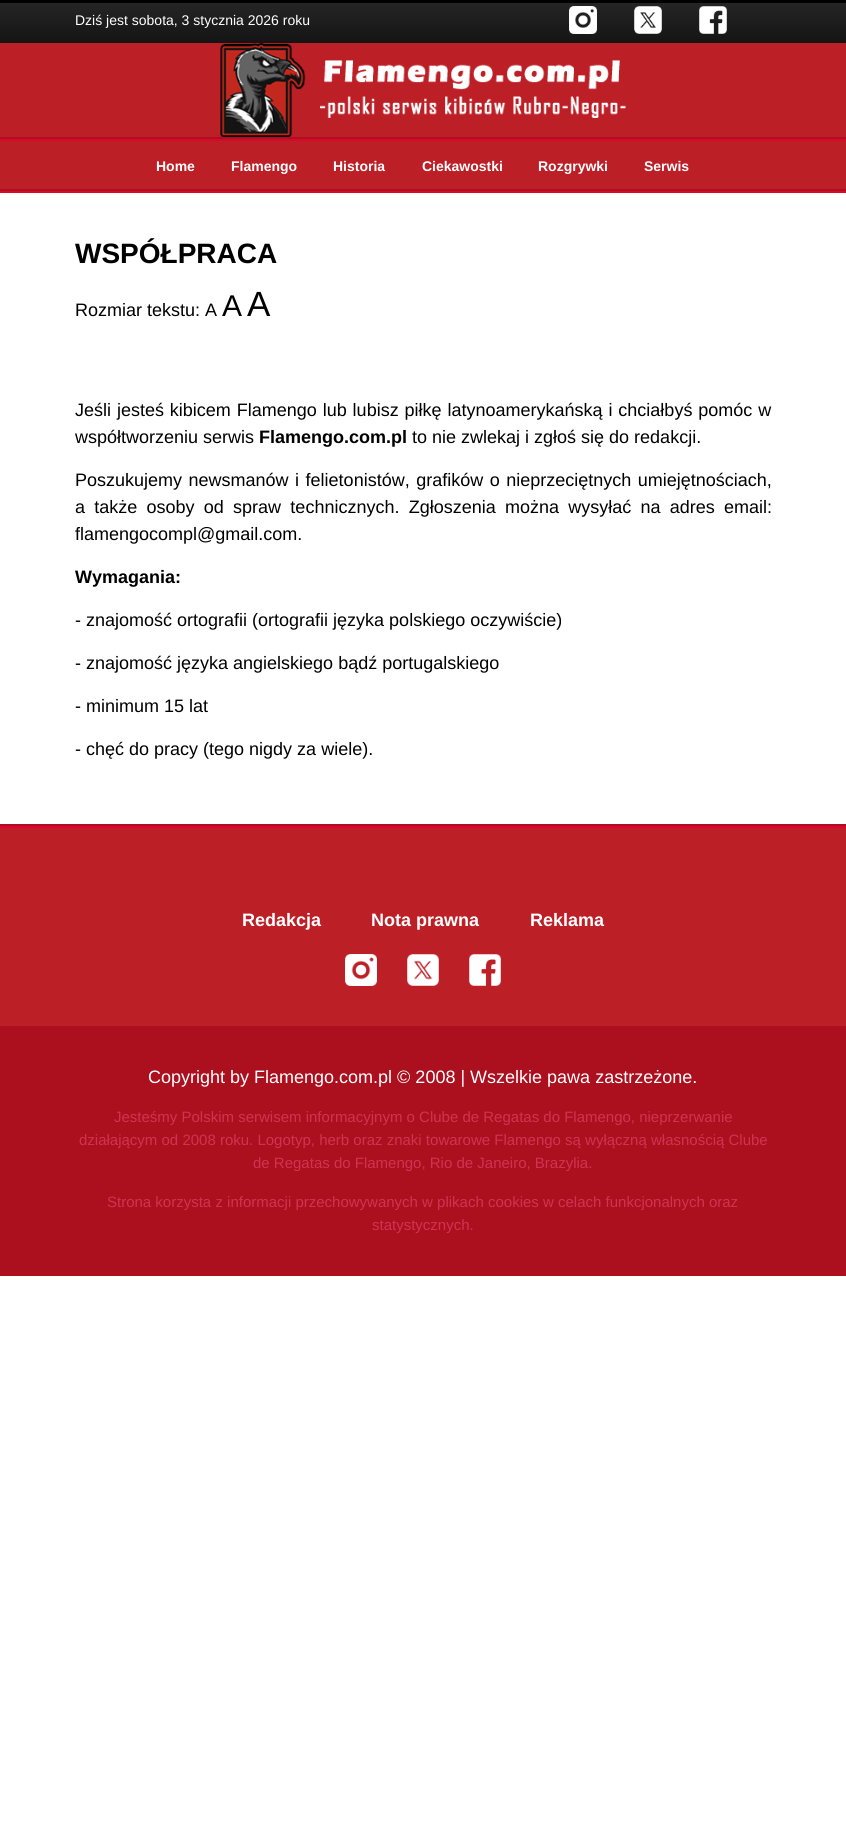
#include <cairo.h>
#include <math.h>
#include <stddef.h>


static void spaced_text(cairo_t *cr, double x, double y, const char *s, double letter, double word) {
    cairo_move_to(cr, x, y);
    while (*s) {
        char ch[5] = {0};
        int n = 0;
        do ch[n++] = *s++; while ((*s & 0xC0) == 0x80);
        cairo_show_text(cr, ch);
        cairo_rel_move_to(cr, letter + word * (*ch == ' '), 0);
    }
}

static void picture(cairo_t *cr, const char *path, double x, double y, double w, double h) {
    cairo_surface_t *image = cairo_image_surface_create_from_png(path);
    cairo_save(cr);
    cairo_set_source_surface(cr, image, x, y);
    cairo_rectangle(cr, x, y, w, h);
    cairo_fill(cr);
    cairo_restore(cr);
    cairo_surface_destroy(image);
}

int main(void) {
    cairo_surface_t *surface = cairo_image_surface_create(CAIRO_FORMAT_RGB24, 846, 1832);
    cairo_t *cr = cairo_create(surface);
    cairo_font_options_t *options = cairo_font_options_create();
    cairo_font_options_set_hint_metrics(options, CAIRO_HINT_METRICS_OFF);
    cairo_font_options_set_hint_style(options, CAIRO_HINT_STYLE_NONE);
    cairo_set_font_options(cr, options);
    cairo_set_miter_limit(cr, 4);
    cairo_pattern_t *gradient;
    cairo_set_source_rgb(cr, 1, 1, 1);
    cairo_paint(cr);
    gradient = cairo_pattern_create_linear(423, 43, 423, 3);
    cairo_pattern_add_color_stop_rgba(gradient, 0, 0.078, 0.078, 0.078, 1);
    cairo_pattern_add_color_stop_rgba(gradient, 1, 0.149, 0.145, 0.149, 1);
    cairo_set_source(cr, gradient);
    cairo_pattern_destroy(gradient);
    cairo_rectangle(cr, 0, 3, 846, 40);
    cairo_fill(cr);
    cairo_set_source_rgb(cr, 0, 0, 0);
    cairo_rectangle(cr, 0, 0, 846, 3);
    cairo_fill(cr);
    cairo_select_font_face(cr, "Liberation Sans", CAIRO_FONT_SLANT_NORMAL, CAIRO_FONT_WEIGHT_NORMAL);
    cairo_set_font_size(cr, 14);
    cairo_set_source_rgb(cr, 1, 1, 1);
    cairo_move_to(cr, 75, 25);
    cairo_show_text(cr, "Dziś jest sobota, 3 stycznia 2026 roku");
    picture(cr, "img1.png", 569, 6, 28, 28);
    picture(cr, "img2.png", 634, 6, 28, 28);
    picture(cr, "img3.png", 699, 6, 28, 28);
    cairo_set_source_rgb(cr, 0.741, 0.122, 0.149);
    cairo_rectangle(cr, 0, 43, 846, 94);
    cairo_fill(cr);
    cairo_set_source_rgb(cr, 0.675, 0.059, 0.114);
    cairo_rectangle(cr, 0, 137, 846, 2);
    cairo_fill(cr);
    picture(cr, "img4.png", 220, 43, 406, 94);
    cairo_set_source_rgb(cr, 0.741, 0.122, 0.149);
    cairo_rectangle(cr, 0, 141, 846, 48);
    cairo_fill(cr);
    cairo_set_source_rgb(cr, 0.863, 0.024, 0.173);
    cairo_rectangle(cr, 0, 139, 846, 2);
    cairo_fill(cr);
    cairo_rectangle(cr, 0, 191, 846, 2);
    cairo_fill(cr);
    cairo_select_font_face(cr, "Liberation Sans", CAIRO_FONT_SLANT_NORMAL, CAIRO_FONT_WEIGHT_BOLD);
    cairo_set_source_rgb(cr, 1, 1, 1);
    cairo_move_to(cr, 156, 171);
    cairo_show_text(cr, "Home");
    cairo_move_to(cr, 231, 171);
    cairo_show_text(cr, "Flamengo");
    cairo_move_to(cr, 333, 171);
    cairo_show_text(cr, "Historia");
    cairo_move_to(cr, 422, 171);
    cairo_show_text(cr, "Ciekawostki");
    cairo_move_to(cr, 538, 171);
    cairo_show_text(cr, "Rozgrywki");
    cairo_move_to(cr, 644, 171);
    cairo_show_text(cr, "Serwis");
    cairo_set_source_rgb(cr, 0.675, 0.059, 0.114);
    cairo_rectangle(cr, 0, 189, 846, 2);
    cairo_fill(cr);
    cairo_set_font_size(cr, 28);
    cairo_set_source_rgb(cr, 0, 0, 0);
    cairo_move_to(cr, 75, 263);
    cairo_show_text(cr, "WSPÓŁPRACA");
    cairo_select_font_face(cr, "Liberation Sans", CAIRO_FONT_SLANT_NORMAL, CAIRO_FONT_WEIGHT_NORMAL);
    cairo_set_font_size(cr, 18);
    cairo_move_to(cr, 75, 316);
    cairo_show_text(cr, "Rozmiar tekstu: A");
    cairo_set_font_size(cr, 30);
    cairo_move_to(cr, 222, 316);
    cairo_show_text(cr, "A");
    cairo_set_font_size(cr, 35);
    cairo_move_to(cr, 247, 316);
    cairo_show_text(cr, "A");
    cairo_set_font_size(cr, 18);
    spaced_text(cr, 75, 416, "Jeśli jesteś kibicem Flamengo lub lubisz piłkę latynoamerykańską i chciałbyś pomóc w", 0, 0.9);
    cairo_move_to(cr, 75, 443);
    cairo_show_text(cr, "współtworzeniu serwis");
    cairo_select_font_face(cr, "Liberation Sans", CAIRO_FONT_SLANT_NORMAL, CAIRO_FONT_WEIGHT_BOLD);
    cairo_move_to(cr, 259, 443);
    cairo_show_text(cr, "Flamengo.com.pl");
    cairo_select_font_face(cr, "Liberation Sans", CAIRO_FONT_SLANT_NORMAL, CAIRO_FONT_WEIGHT_NORMAL);
    cairo_move_to(cr, 412, 443);
    cairo_show_text(cr, "to nie zwlekaj i zgłoś się do redakcji.");
    spaced_text(cr, 75, 486, "Poszukujemy newsmanów i felietonistów, grafików o nieprzeciętnych umiejętnościach,", 0, 1.5);
    spaced_text(cr, 75, 513, "a także osoby od spraw technicznych. Zgłoszenia można wysyłać na adres email:", 0, 4.25);
    cairo_move_to(cr, 75, 540);
    cairo_show_text(cr, "flamengocompl@gmail.com.");
    cairo_select_font_face(cr, "Liberation Sans", CAIRO_FONT_SLANT_NORMAL, CAIRO_FONT_WEIGHT_BOLD);
    cairo_move_to(cr, 75, 583);
    cairo_show_text(cr, "Wymagania:");
    cairo_select_font_face(cr, "Liberation Sans", CAIRO_FONT_SLANT_NORMAL, CAIRO_FONT_WEIGHT_NORMAL);
    cairo_move_to(cr, 75, 626);
    cairo_show_text(cr, "- znajomość ortografii (ortografii języka polskiego oczywiście)");
    cairo_move_to(cr, 75, 669);
    cairo_show_text(cr, "- znajomość języka angielskiego bądź portugalskiego");
    cairo_move_to(cr, 75, 712);
    cairo_show_text(cr, "- minimum 15 lat");
    cairo_move_to(cr, 75, 755);
    cairo_show_text(cr, "- chęć do pracy (tego nigdy za wiele).");
    cairo_set_source_rgb(cr, 0.675, 0.059, 0.114);
    cairo_rectangle(cr, 0, 1026, 846, 250);
    cairo_fill(cr);
    cairo_set_source_rgb(cr, 0.741, 0.122, 0.149);
    cairo_rectangle(cr, 0, 828, 846, 198);
    cairo_fill(cr);
    cairo_set_source_rgb(cr, 0.675, 0.059, 0.114);
    cairo_rectangle(cr, 0, 824, 846, 2);
    cairo_fill(cr);
    cairo_set_source_rgb(cr, 0.863, 0.024, 0.173);
    cairo_rectangle(cr, 0, 826, 846, 2);
    cairo_fill(cr);
    cairo_select_font_face(cr, "Liberation Sans", CAIRO_FONT_SLANT_NORMAL, CAIRO_FONT_WEIGHT_BOLD);
    cairo_set_source_rgb(cr, 1, 1, 1);
    cairo_move_to(cr, 242, 926);
    cairo_show_text(cr, "Redakcja");
    cairo_move_to(cr, 371, 926);
    cairo_show_text(cr, "Nota prawna");
    cairo_move_to(cr, 530, 926);
    cairo_show_text(cr, "Reklama");
    picture(cr, "img5.png", 345, 954, 32, 32);
    picture(cr, "img6.png", 407, 954, 32, 32);
    picture(cr, "img7.png", 469, 954, 32, 32);
    cairo_select_font_face(cr, "Liberation Sans", CAIRO_FONT_SLANT_NORMAL, CAIRO_FONT_WEIGHT_NORMAL);
    cairo_move_to(cr, 148, 1083);
    cairo_show_text(cr, "Copyright by Flamengo.com.pl © 2008 | Wszelkie pawa zastrzeżone.");
    cairo_set_font_size(cr, 15);
    cairo_set_source_rgb(cr, 0.82, 0.196, 0.322);
    cairo_move_to(cr, 114, 1122);
    cairo_show_text(cr, "Jesteśmy Polskim serwisem informacyjnym o Clube de Regatas do Flamengo, nieprzerwanie");
    cairo_move_to(cr, 79, 1145);
    cairo_show_text(cr, "działającym od 2008 roku. Logotyp, herb oraz znaki towarowe Flamengo są wyłączną własnością Clube");
    cairo_move_to(cr, 253, 1168);
    cairo_show_text(cr, "de Regatas do Flamengo, Rio de Janeiro, Brazylia.");
    cairo_move_to(cr, 107, 1207);
    cairo_show_text(cr, "Strona korzysta z informacji przechowywanych w plikach cookies w celach funkcjonalnych oraz");
    cairo_move_to(cr, 372, 1230);
    cairo_show_text(cr, "statystycznych.");
    cairo_surface_write_to_png(surface, "page.png");
    cairo_font_options_destroy(options);
    cairo_destroy(cr);
    cairo_surface_destroy(surface);
    return 0;
}
